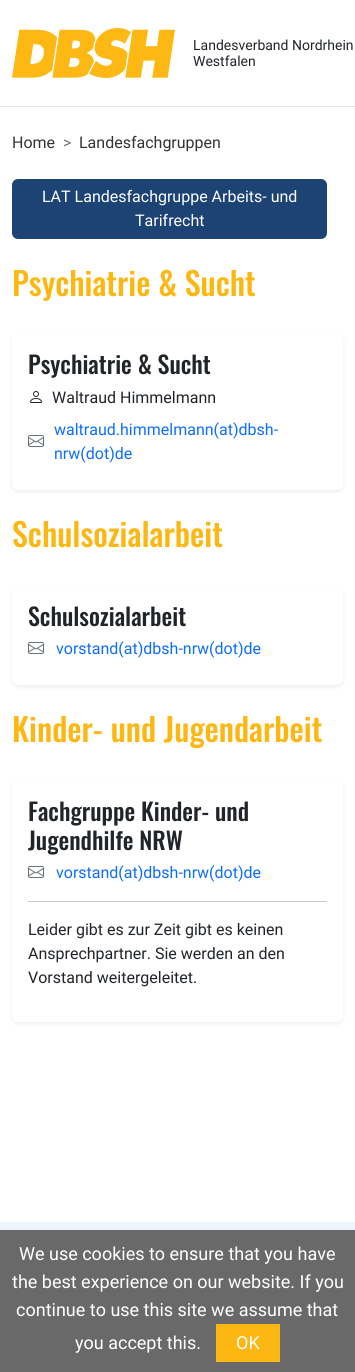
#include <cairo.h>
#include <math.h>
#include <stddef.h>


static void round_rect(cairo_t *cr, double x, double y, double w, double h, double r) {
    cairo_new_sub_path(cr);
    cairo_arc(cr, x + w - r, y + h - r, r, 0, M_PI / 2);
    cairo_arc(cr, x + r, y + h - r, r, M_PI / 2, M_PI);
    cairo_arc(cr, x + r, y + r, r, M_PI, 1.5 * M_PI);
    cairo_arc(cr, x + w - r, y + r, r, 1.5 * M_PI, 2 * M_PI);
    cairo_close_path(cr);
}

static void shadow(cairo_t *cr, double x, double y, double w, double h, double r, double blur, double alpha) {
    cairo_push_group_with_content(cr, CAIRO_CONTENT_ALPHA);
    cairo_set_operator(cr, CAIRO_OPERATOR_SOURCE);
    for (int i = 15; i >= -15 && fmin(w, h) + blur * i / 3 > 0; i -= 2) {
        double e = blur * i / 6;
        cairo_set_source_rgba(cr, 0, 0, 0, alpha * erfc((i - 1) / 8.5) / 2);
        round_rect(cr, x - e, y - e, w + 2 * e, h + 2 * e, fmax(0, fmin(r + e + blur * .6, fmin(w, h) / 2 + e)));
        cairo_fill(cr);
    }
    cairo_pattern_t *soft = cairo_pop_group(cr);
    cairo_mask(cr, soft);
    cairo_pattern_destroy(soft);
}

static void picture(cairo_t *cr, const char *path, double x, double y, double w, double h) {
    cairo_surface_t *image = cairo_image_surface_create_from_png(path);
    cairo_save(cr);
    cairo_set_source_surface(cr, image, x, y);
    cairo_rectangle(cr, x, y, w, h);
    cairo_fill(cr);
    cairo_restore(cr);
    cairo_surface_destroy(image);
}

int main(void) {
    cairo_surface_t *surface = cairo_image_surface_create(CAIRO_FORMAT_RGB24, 355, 1372);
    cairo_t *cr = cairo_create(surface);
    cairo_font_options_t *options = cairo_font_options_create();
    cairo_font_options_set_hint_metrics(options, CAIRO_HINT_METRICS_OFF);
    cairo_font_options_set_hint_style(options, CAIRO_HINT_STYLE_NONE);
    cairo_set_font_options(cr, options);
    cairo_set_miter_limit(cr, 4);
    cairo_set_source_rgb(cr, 1, 1, 1);
    cairo_paint(cr);
    cairo_set_source_rgb(cr, 0.902, 0.902, 0.902);
    cairo_rectangle(cr, 0, 106, 355, 1);
    cairo_fill(cr);
    picture(cr, "img1.png", 12, 28, 163, 50);
    cairo_select_font_face(cr, "Roboto", CAIRO_FONT_SLANT_NORMAL, CAIRO_FONT_WEIGHT_NORMAL);
    cairo_set_font_size(cr, 14);
    cairo_set_source_rgb(cr, 0.129, 0.145, 0.161);
    cairo_move_to(cr, 193, 50);
    cairo_show_text(cr, "Landesverband Nordrhein");
    cairo_move_to(cr, 193, 66);
    cairo_show_text(cr, "Westfalen");
    cairo_set_font_size(cr, 16);
    cairo_set_source_rgb(cr, 0.2, 0.2, 0.2);
    cairo_move_to(cr, 12, 148);
    cairo_show_text(cr, "Home");
    cairo_set_source_rgb(cr, 0.424, 0.459, 0.49);
    cairo_move_to(cr, 63, 148);
    cairo_show_text(cr, ">");
    cairo_set_source_rgb(cr, 0.2, 0.2, 0.2);
    cairo_move_to(cr, 79, 148);
    cairo_show_text(cr, "Landesfachgruppen");
    cairo_set_source_rgb(cr, 0.11, 0.263, 0.455);
    round_rect(cr, 12, 179, 315, 60, 6);
    cairo_fill(cr);
    cairo_set_source_rgb(cr, 1, 1, 1);
    cairo_move_to(cr, 42, 202);
    cairo_show_text(cr, "LAT Landesfachgruppe Arbeits- und");
    cairo_move_to(cr, 135, 226);
    cairo_show_text(cr, "Tarifrecht");
    cairo_select_font_face(cr, "Oswald Medium", CAIRO_FONT_SLANT_NORMAL, CAIRO_FONT_WEIGHT_NORMAL);
    cairo_set_font_size(cr, 32);
    cairo_set_source_rgb(cr, 0.988, 0.718, 0.075);
    cairo_move_to(cr, 12, 296);
    cairo_show_text(cr, "Psychiatrie & Sucht");
    cairo_set_source_rgb(cr, 0, 0, 0);
    shadow(cr, 12, 335, 331, 157, 6, 2, 0.07);
    cairo_set_source_rgb(cr, 1, 1, 1);
    round_rect(cr, 12, 333, 331, 157, 6);
    cairo_fill(cr);
    cairo_set_font_size(cr, 24);
    cairo_set_source_rgb(cr, 0.129, 0.145, 0.161);
    cairo_move_to(cr, 28, 374);
    cairo_show_text(cr, "Psychiatrie & Sucht");
    picture(cr, "img2.png", 30, 391, 12, 12);
    cairo_select_font_face(cr, "Roboto", CAIRO_FONT_SLANT_NORMAL, CAIRO_FONT_WEIGHT_NORMAL);
    cairo_set_font_size(cr, 16);
    cairo_move_to(cr, 52, 403);
    cairo_show_text(cr, "Waltraud Himmelmann");
    picture(cr, "img3.png", 28, 435, 16, 12);
    cairo_set_source_rgb(cr, 0.051, 0.431, 0.992);
    cairo_move_to(cr, 54, 435);
    cairo_show_text(cr, "waltraud.himmelmann(at)dbsh-");
    cairo_move_to(cr, 54, 459);
    cairo_show_text(cr, "nrw(dot)de");
    cairo_select_font_face(cr, "Oswald Medium", CAIRO_FONT_SLANT_NORMAL, CAIRO_FONT_WEIGHT_NORMAL);
    cairo_set_font_size(cr, 32);
    cairo_set_source_rgb(cr, 0.988, 0.718, 0.075);
    cairo_move_to(cr, 12, 547);
    cairo_show_text(cr, "Schulsozialarbeit");
    cairo_set_source_rgb(cr, 0, 0, 0);
    shadow(cr, 12, 587, 331, 100, 6, 2, 0.07);
    cairo_set_source_rgb(cr, 1, 1, 1);
    round_rect(cr, 12, 585, 331, 100, 6);
    cairo_fill(cr);
    cairo_set_font_size(cr, 24);
    cairo_set_source_rgb(cr, 0.129, 0.145, 0.161);
    cairo_move_to(cr, 28, 626);
    cairo_show_text(cr, "Schulsozialarbeit");
    picture(cr, "img3.png", 28, 642, 16, 12);
    cairo_select_font_face(cr, "Roboto", CAIRO_FONT_SLANT_NORMAL, CAIRO_FONT_WEIGHT_NORMAL);
    cairo_set_font_size(cr, 16);
    cairo_set_source_rgb(cr, 0.051, 0.431, 0.992);
    cairo_move_to(cr, 56, 654);
    cairo_show_text(cr, "vorstand(at)dbsh-nrw(dot)de");
    cairo_select_font_face(cr, "Oswald Medium", CAIRO_FONT_SLANT_NORMAL, CAIRO_FONT_WEIGHT_NORMAL);
    cairo_set_font_size(cr, 32);
    cairo_set_source_rgb(cr, 0.988, 0.718, 0.075);
    cairo_move_to(cr, 12, 742);
    cairo_show_text(cr, "Kinder- und Jugendarbeit");
    cairo_set_source_rgb(cr, 0, 0, 0);
    shadow(cr, 12, 782, 331, 242, 6, 2, 0.07);
    cairo_set_source_rgb(cr, 1, 1, 1);
    round_rect(cr, 12, 780, 331, 242, 6);
    cairo_fill(cr);
    cairo_set_font_size(cr, 24);
    cairo_set_source_rgb(cr, 0.129, 0.145, 0.161);
    cairo_move_to(cr, 28, 821);
    cairo_show_text(cr, "Fachgruppe Kinder- und");
    cairo_move_to(cr, 28, 850);
    cairo_show_text(cr, "Jugendhilfe NRW");
    picture(cr, "img3.png", 28, 866, 16, 12);
    cairo_select_font_face(cr, "Roboto", CAIRO_FONT_SLANT_NORMAL, CAIRO_FONT_WEIGHT_NORMAL);
    cairo_set_font_size(cr, 16);
    cairo_set_source_rgb(cr, 0.051, 0.431, 0.992);
    cairo_move_to(cr, 56, 878);
    cairo_show_text(cr, "vorstand(at)dbsh-nrw(dot)de");
    cairo_set_source_rgb(cr, 0.784, 0.788, 0.792);
    cairo_rectangle(cr, 28, 901, 299, 1);
    cairo_fill(cr);
    cairo_set_source_rgb(cr, 0.129, 0.145, 0.161);
    cairo_move_to(cr, 28, 935);
    cairo_show_text(cr, "Leider gibt es zur Zeit gibt es keinen");
    cairo_move_to(cr, 28, 959);
    cairo_show_text(cr, "Ansprechpartner. Sie werden an den");
    cairo_move_to(cr, 28, 983);
    cairo_show_text(cr, "Vorstand weitergeleitet.");
    cairo_set_source_rgb(cr, 0.929, 0.961, 1);
    cairo_rectangle(cr, 0, 1222, 355, 8);
    cairo_fill(cr);
    cairo_set_source_rgb(cr, 0.412, 0.412, 0.412);
    cairo_rectangle(cr, 0, 1230, 355, 142);
    cairo_fill(cr);
    cairo_set_font_size(cr, 18);
    cairo_set_source_rgb(cr, 1, 1, 1);
    cairo_move_to(cr, 19, 1260);
    cairo_show_text(cr, "We use cookies to ensure that you have");
    cairo_move_to(cr, 12, 1288);
    cairo_show_text(cr, "the best experience on our website. If you");
    cairo_move_to(cr, 16, 1316);
    cairo_show_text(cr, "continue to use this site we assume that");
    cairo_move_to(cr, 75, 1349);
    cairo_show_text(cr, "you accept this.");
    cairo_set_source_rgb(cr, 0.988, 0.718, 0.075);
    cairo_rectangle(cr, 216, 1324, 64, 38);
    cairo_fill(cr);
    cairo_set_source_rgb(cr, 1, 1, 1);
    cairo_move_to(cr, 236, 1349);
    cairo_show_text(cr, "OK");
    cairo_surface_write_to_png(surface, "page.png");
    cairo_font_options_destroy(options);
    cairo_destroy(cr);
    cairo_surface_destroy(surface);
    return 0;
}
